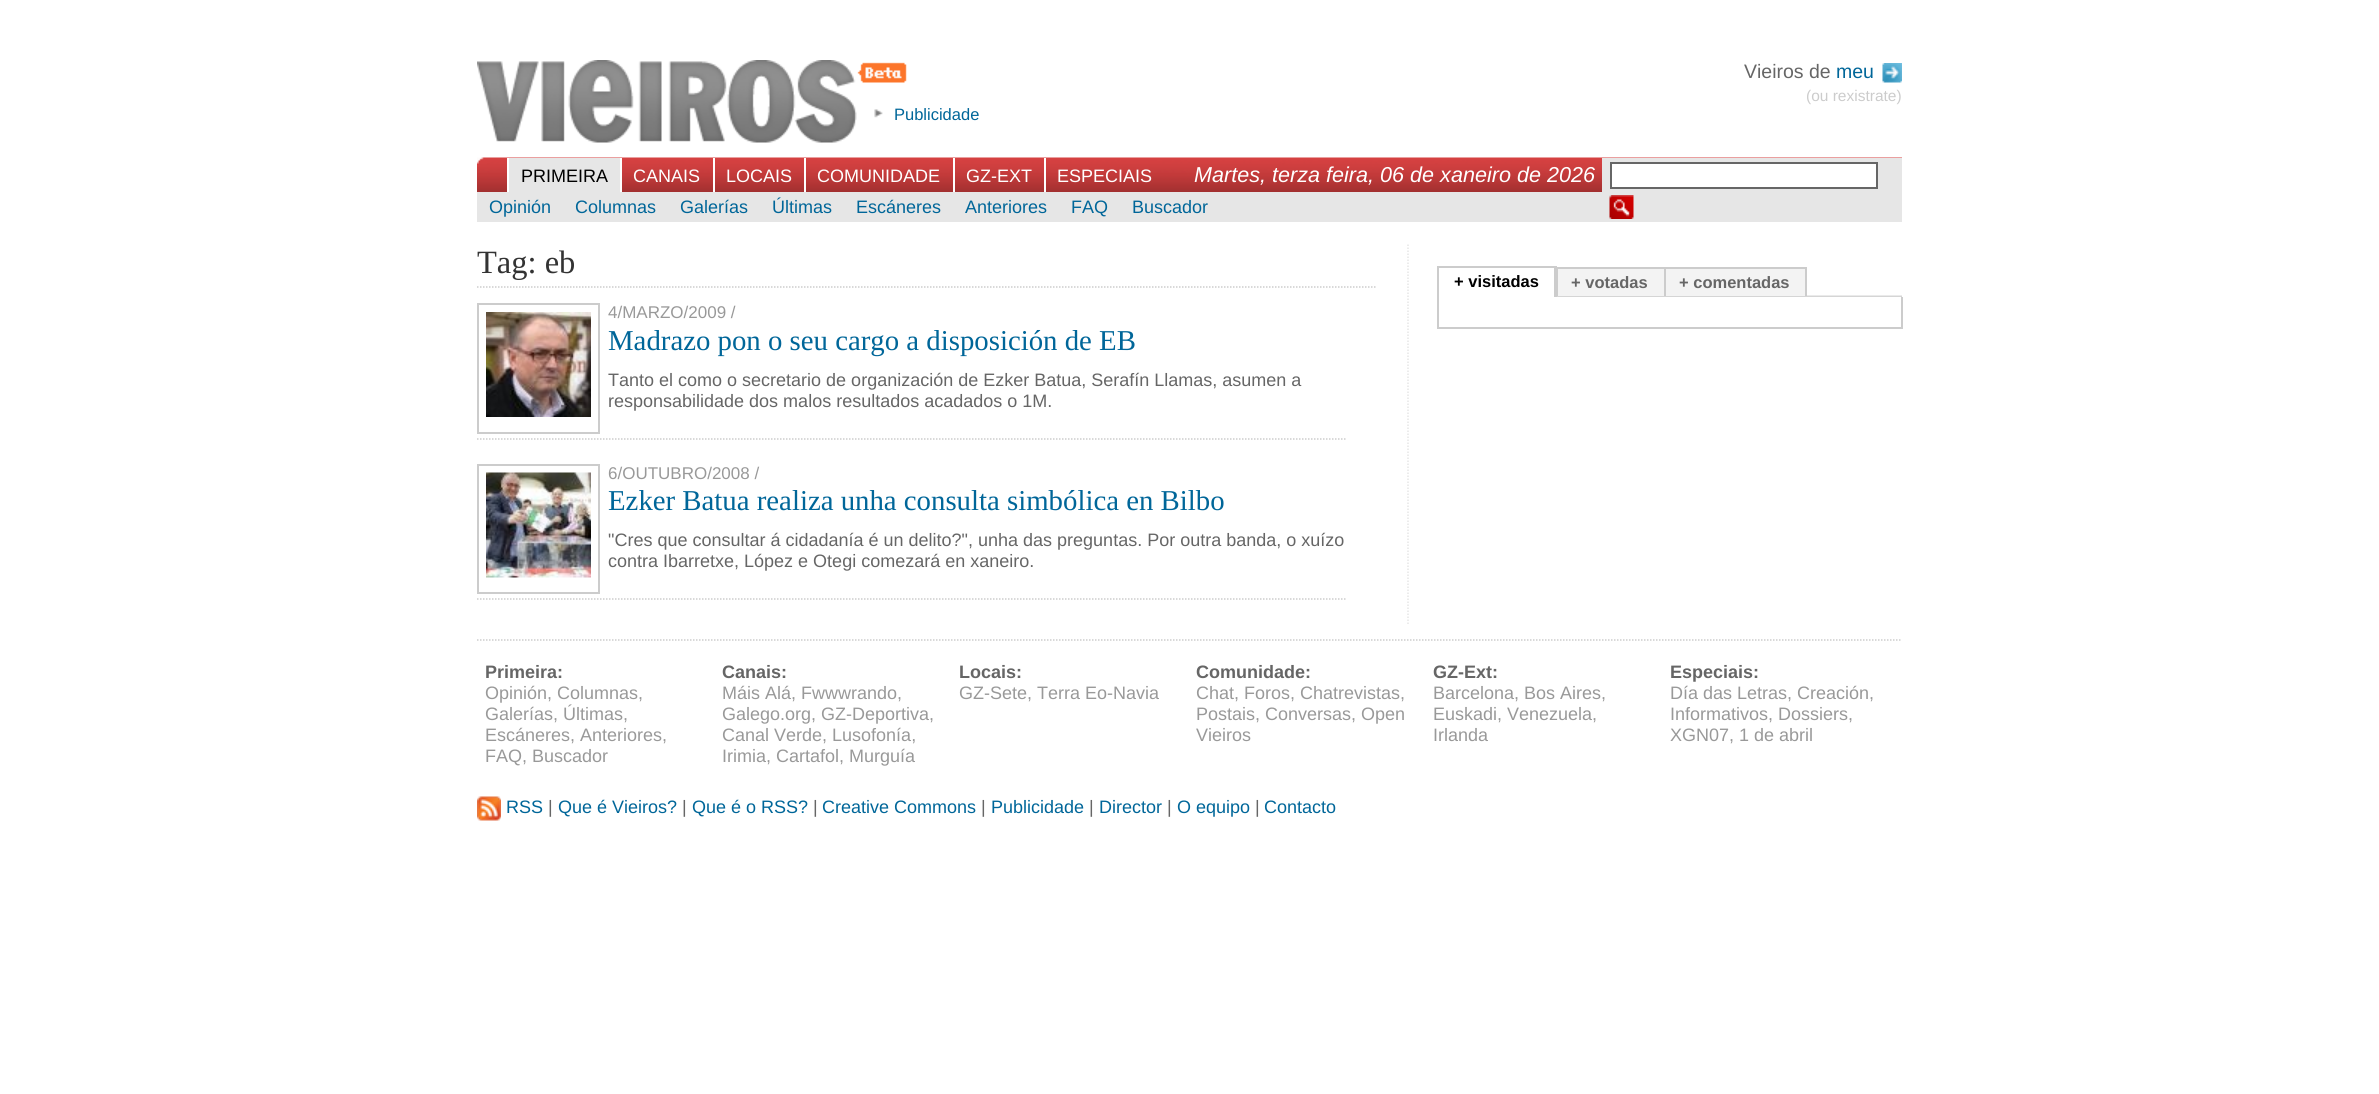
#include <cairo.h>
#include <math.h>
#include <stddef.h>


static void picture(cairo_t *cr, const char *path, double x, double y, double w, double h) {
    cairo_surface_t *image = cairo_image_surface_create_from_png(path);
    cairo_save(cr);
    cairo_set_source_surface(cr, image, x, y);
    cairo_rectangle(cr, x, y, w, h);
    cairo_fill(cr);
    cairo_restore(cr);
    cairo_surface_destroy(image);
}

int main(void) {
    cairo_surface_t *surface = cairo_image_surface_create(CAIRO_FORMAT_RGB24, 2379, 1094);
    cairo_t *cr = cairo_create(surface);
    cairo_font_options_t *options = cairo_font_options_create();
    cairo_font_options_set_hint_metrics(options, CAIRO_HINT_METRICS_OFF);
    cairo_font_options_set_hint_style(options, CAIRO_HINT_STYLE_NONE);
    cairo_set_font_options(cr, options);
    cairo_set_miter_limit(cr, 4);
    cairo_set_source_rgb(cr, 1, 1, 1);
    cairo_paint(cr);
    picture(cr, "img1.png", 477, 60, 430, 83);
    cairo_select_font_face(cr, "Liberation Sans", CAIRO_FONT_SLANT_NORMAL, CAIRO_FONT_WEIGHT_NORMAL);
    cairo_set_font_size(cr, 19.5);
    cairo_set_source_rgb(cr, 0.4, 0.4, 0.4);
    cairo_move_to(cr, 1744, 78);
    cairo_show_text(cr, "Vieiros de");
    cairo_set_source_rgb(cr, 0, 0.4, 0.6);
    cairo_move_to(cr, 1836, 78);
    cairo_show_text(cr, "meu");
    picture(cr, "img2.png", 1882, 63, 20, 20);
    cairo_set_font_size(cr, 15.5);
    cairo_set_source_rgb(cr, 0.8, 0.8, 0.8);
    cairo_move_to(cr, 1806, 101);
    cairo_show_text(cr, "(ou rexistrate)");
    picture(cr, "img3.png", 874, 109, 9, 9);
    cairo_set_font_size(cr, 16.5);
    cairo_set_source_rgb(cr, 0, 0.4, 0.6);
    cairo_move_to(cr, 894, 120);
    cairo_show_text(cr, "Publicidade");
    picture(cr, "img4.png", 477, 157, 1425, 35);
    cairo_set_source_rgb(cr, 1, 1, 1);
    cairo_rectangle(cr, 507, 158, 2, 34);
    cairo_fill(cr);
    cairo_set_source_rgb(cr, 0.902, 0.902, 0.902);
    cairo_rectangle(cr, 509, 158, 111, 34);
    cairo_fill(cr);
    cairo_set_font_size(cr, 18);
    cairo_set_source_rgb(cr, 0, 0, 0);
    cairo_move_to(cr, 521, 182);
    cairo_show_text(cr, "PRIMEIRA");
    cairo_set_source_rgb(cr, 1, 1, 1);
    cairo_rectangle(cr, 620, 158, 2, 34);
    cairo_fill(cr);
    cairo_move_to(cr, 633, 182);
    cairo_show_text(cr, "CANAIS");
    cairo_rectangle(cr, 713, 158, 2, 34);
    cairo_fill(cr);
    cairo_move_to(cr, 726, 182);
    cairo_show_text(cr, "LOCAIS");
    cairo_rectangle(cr, 804, 158, 2, 34);
    cairo_fill(cr);
    cairo_move_to(cr, 817, 182);
    cairo_show_text(cr, "COMUNIDADE");
    cairo_rectangle(cr, 953, 158, 2, 34);
    cairo_fill(cr);
    cairo_move_to(cr, 966, 182);
    cairo_show_text(cr, "GZ-EXT");
    cairo_rectangle(cr, 1044, 158, 2, 34);
    cairo_fill(cr);
    cairo_move_to(cr, 1057, 182);
    cairo_show_text(cr, "ESPECIAIS");
    cairo_select_font_face(cr, "Liberation Sans", CAIRO_FONT_SLANT_ITALIC, CAIRO_FONT_WEIGHT_NORMAL);
    cairo_set_font_size(cr, 21.6);
    cairo_move_to(cr, 1194, 182);
    cairo_show_text(cr, "Martes, terza feira, 06 de xaneiro de 2026");
    cairo_set_source_rgb(cr, 0.902, 0.902, 0.902);
    cairo_rectangle(cr, 1602, 158, 300, 34);
    cairo_fill(cr);
    cairo_set_source_rgb(cr, 1, 1, 1);
    cairo_rectangle(cr, 1611, 163, 266, 25);
    cairo_fill_preserve(cr);
    cairo_set_source_rgb(cr, 0.4, 0.4, 0.4);
    cairo_stroke(cr);
    cairo_set_source_rgb(cr, 0.902, 0.902, 0.902);
    cairo_rectangle(cr, 477, 192, 1425, 30);
    cairo_fill(cr);
    picture(cr, "img5.png", 1609, 195, 25, 24);
    cairo_select_font_face(cr, "Liberation Sans", CAIRO_FONT_SLANT_NORMAL, CAIRO_FONT_WEIGHT_NORMAL);
    cairo_set_font_size(cr, 18);
    cairo_set_source_rgb(cr, 0, 0.4, 0.6);
    cairo_move_to(cr, 489, 213);
    cairo_show_text(cr, "Opinión");
    cairo_move_to(cr, 575, 213);
    cairo_show_text(cr, "Columnas");
    cairo_move_to(cr, 680, 213);
    cairo_show_text(cr, "Galerías");
    cairo_move_to(cr, 772, 213);
    cairo_show_text(cr, "Últimas");
    cairo_move_to(cr, 856, 213);
    cairo_show_text(cr, "Escáneres");
    cairo_move_to(cr, 965, 213);
    cairo_show_text(cr, "Anteriores");
    cairo_move_to(cr, 1071, 213);
    cairo_show_text(cr, "FAQ");
    cairo_move_to(cr, 1132, 213);
    cairo_show_text(cr, "Buscador");
    cairo_new_path(cr);
    cairo_move_to(cr, 1408, 244.5);
    cairo_line_to(cr, 1408, 624);
    cairo_set_source_rgb(cr, 0.902, 0.902, 0.902);
    cairo_set_line_width(cr, 1.5);
    cairo_set_dash(cr, (double[]){1.5, 1.5}, 2, 0);
    cairo_stroke(cr);
    cairo_new_path(cr);
    cairo_move_to(cr, 477, 287);
    cairo_line_to(cr, 1377, 287);
    cairo_set_source_rgb(cr, 0.8, 0.8, 0.8);
    cairo_stroke(cr);
    cairo_select_font_face(cr, "Liberation Serif", CAIRO_FONT_SLANT_NORMAL, CAIRO_FONT_WEIGHT_NORMAL);
    cairo_set_font_size(cr, 32.5);
    cairo_set_source_rgb(cr, 0.2, 0.2, 0.2);
    cairo_move_to(cr, 477, 273);
    cairo_show_text(cr, "Tag: eb");
    cairo_new_path(cr);
    cairo_move_to(cr, 477, 439);
    cairo_line_to(cr, 1347, 439);
    cairo_set_source_rgb(cr, 0.8, 0.8, 0.8);
    cairo_stroke(cr);
    cairo_rectangle(cr, 478, 304, 121, 129);
    cairo_set_line_width(cr, 2);
    cairo_set_dash(cr, NULL, 0, 0);
    cairo_stroke(cr);
    picture(cr, "img6.png", 486, 312, 105, 105);
    cairo_select_font_face(cr, "Liberation Sans", CAIRO_FONT_SLANT_NORMAL, CAIRO_FONT_WEIGHT_NORMAL);
    cairo_set_font_size(cr, 17);
    cairo_set_source_rgb(cr, 0.6, 0.6, 0.6);
    cairo_move_to(cr, 608, 318);
    cairo_show_text(cr, "4/MARZO/2009 /");
    cairo_select_font_face(cr, "Liberation Serif", CAIRO_FONT_SLANT_NORMAL, CAIRO_FONT_WEIGHT_NORMAL);
    cairo_set_font_size(cr, 28.8);
    cairo_set_source_rgb(cr, 0, 0.4, 0.6);
    cairo_move_to(cr, 608, 350);
    cairo_show_text(cr, "Madrazo pon o seu cargo a disposición de EB");
    cairo_select_font_face(cr, "Liberation Sans", CAIRO_FONT_SLANT_NORMAL, CAIRO_FONT_WEIGHT_NORMAL);
    cairo_set_font_size(cr, 18);
    cairo_set_source_rgb(cr, 0.4, 0.4, 0.4);
    cairo_move_to(cr, 608, 386);
    cairo_show_text(cr, "Tanto el como o secretario de organización de Ezker Batua, Serafín Llamas, asumen a");
    cairo_move_to(cr, 608, 407);
    cairo_show_text(cr, "responsabilidade dos malos resultados acadados o 1M.");
    cairo_new_path(cr);
    cairo_move_to(cr, 477, 599);
    cairo_line_to(cr, 1347, 599);
    cairo_set_source_rgb(cr, 0.8, 0.8, 0.8);
    cairo_set_line_width(cr, 1.5);
    cairo_set_dash(cr, (double[]){1.5, 1.5}, 2, 0);
    cairo_stroke(cr);
    cairo_rectangle(cr, 478, 465, 121, 128);
    cairo_set_line_width(cr, 2);
    cairo_set_dash(cr, NULL, 0, 0);
    cairo_stroke(cr);
    picture(cr, "img7.png", 486, 472, 105, 106);
    cairo_set_font_size(cr, 17);
    cairo_set_source_rgb(cr, 0.6, 0.6, 0.6);
    cairo_move_to(cr, 608, 479);
    cairo_show_text(cr, "6/OUTUBRO/2008 /");
    cairo_select_font_face(cr, "Liberation Serif", CAIRO_FONT_SLANT_NORMAL, CAIRO_FONT_WEIGHT_NORMAL);
    cairo_set_font_size(cr, 28.8);
    cairo_set_source_rgb(cr, 0, 0.4, 0.6);
    cairo_move_to(cr, 608, 510);
    cairo_show_text(cr, "Ezker Batua realiza unha consulta simbólica en Bilbo");
    cairo_select_font_face(cr, "Liberation Sans", CAIRO_FONT_SLANT_NORMAL, CAIRO_FONT_WEIGHT_NORMAL);
    cairo_set_font_size(cr, 18);
    cairo_set_source_rgb(cr, 0.4, 0.4, 0.4);
    cairo_move_to(cr, 608, 546);
    cairo_show_text(cr, "\"Cres que consultar á cidadanía é un delito?\", unha das preguntas. Por outra banda, o xuízo");
    cairo_move_to(cr, 608, 567);
    cairo_show_text(cr, "contra Ibarretxe, López e Otegi comezará en xaneiro.");
    picture(cr, "img8.png", 1557, 295, 345, 2);
    cairo_set_source_rgb(cr, 0.8, 0.8, 0.8);
    cairo_rectangle(cr, 1437, 266, 120, 2);
    cairo_fill(cr);
    cairo_rectangle(cr, 1554, 266, 3, 31);
    cairo_fill(cr);
    cairo_rectangle(cr, 1437, 266, 2, 31);
    cairo_fill(cr);
    cairo_select_font_face(cr, "Liberation Sans", CAIRO_FONT_SLANT_NORMAL, CAIRO_FONT_WEIGHT_BOLD);
    cairo_set_font_size(cr, 16.5);
    cairo_set_source_rgb(cr, 0, 0, 0);
    cairo_move_to(cr, 1454, 287);
    cairo_show_text(cr, "+ visitadas");
    cairo_set_source_rgb(cr, 0.953, 0.953, 0.953);
    cairo_rectangle(cr, 1558, 269, 106, 27);
    cairo_fill(cr);
    cairo_set_source_rgb(cr, 0.8, 0.8, 0.8);
    cairo_rectangle(cr, 1556, 267, 250, 2);
    cairo_fill(cr);
    cairo_rectangle(cr, 1557, 267, 1, 29);
    cairo_fill(cr);
    cairo_set_source_rgb(cr, 0.4, 0.4, 0.4);
    cairo_move_to(cr, 1571, 288);
    cairo_show_text(cr, "+ votadas");
    cairo_set_source_rgb(cr, 0.953, 0.953, 0.953);
    cairo_rectangle(cr, 1666, 269, 139, 27);
    cairo_fill(cr);
    cairo_set_source_rgb(cr, 0.8, 0.8, 0.8);
    cairo_rectangle(cr, 1805, 267, 2, 29);
    cairo_fill(cr);
    cairo_rectangle(cr, 1664, 267, 2, 29);
    cairo_fill(cr);
    cairo_set_source_rgb(cr, 0.4, 0.4, 0.4);
    cairo_move_to(cr, 1679, 288);
    cairo_show_text(cr, "+ comentadas");
    cairo_set_source_rgb(cr, 0.8, 0.8, 0.8);
    cairo_rectangle(cr, 1901, 297, 2, 32);
    cairo_fill(cr);
    cairo_rectangle(cr, 1437, 327, 465, 2);
    cairo_fill(cr);
    cairo_rectangle(cr, 1437, 297, 2, 32);
    cairo_fill(cr);
    cairo_new_path(cr);
    cairo_move_to(cr, 477, 640);
    cairo_line_to(cr, 1902, 640);
    cairo_set_line_width(cr, 1.5);
    cairo_set_dash(cr, (double[]){1.5, 1.5}, 2, 0);
    cairo_stroke(cr);
    cairo_set_font_size(cr, 18);
    cairo_set_source_rgb(cr, 0.4, 0.4, 0.4);
    cairo_move_to(cr, 485, 678);
    cairo_show_text(cr, "Primeira:");
    cairo_select_font_face(cr, "Liberation Sans", CAIRO_FONT_SLANT_NORMAL, CAIRO_FONT_WEIGHT_NORMAL);
    cairo_set_source_rgb(cr, 0.6, 0.6, 0.6);
    cairo_move_to(cr, 485, 699);
    cairo_show_text(cr, "Opinión, Columnas,");
    cairo_move_to(cr, 485, 720);
    cairo_show_text(cr, "Galerías, Últimas,");
    cairo_move_to(cr, 485, 741);
    cairo_show_text(cr, "Escáneres, Anteriores,");
    cairo_move_to(cr, 485, 762);
    cairo_show_text(cr, "FAQ, Buscador");
    cairo_select_font_face(cr, "Liberation Sans", CAIRO_FONT_SLANT_NORMAL, CAIRO_FONT_WEIGHT_BOLD);
    cairo_set_source_rgb(cr, 0.4, 0.4, 0.4);
    cairo_move_to(cr, 722, 678);
    cairo_show_text(cr, "Canais:");
    cairo_select_font_face(cr, "Liberation Sans", CAIRO_FONT_SLANT_NORMAL, CAIRO_FONT_WEIGHT_NORMAL);
    cairo_set_source_rgb(cr, 0.6, 0.6, 0.6);
    cairo_move_to(cr, 722, 699);
    cairo_show_text(cr, "Máis Alá, Fwwwrando,");
    cairo_move_to(cr, 722, 720);
    cairo_show_text(cr, "Galego.org, GZ-Deportiva,");
    cairo_move_to(cr, 722, 741);
    cairo_show_text(cr, "Canal Verde, Lusofonía,");
    cairo_move_to(cr, 722, 762);
    cairo_show_text(cr, "Irimia, Cartafol, Murguía");
    cairo_select_font_face(cr, "Liberation Sans", CAIRO_FONT_SLANT_NORMAL, CAIRO_FONT_WEIGHT_BOLD);
    cairo_set_source_rgb(cr, 0.4, 0.4, 0.4);
    cairo_move_to(cr, 959, 678);
    cairo_show_text(cr, "Locais:");
    cairo_select_font_face(cr, "Liberation Sans", CAIRO_FONT_SLANT_NORMAL, CAIRO_FONT_WEIGHT_NORMAL);
    cairo_set_source_rgb(cr, 0.6, 0.6, 0.6);
    cairo_move_to(cr, 959, 699);
    cairo_show_text(cr, "GZ-Sete, Terra Eo-Navia");
    cairo_select_font_face(cr, "Liberation Sans", CAIRO_FONT_SLANT_NORMAL, CAIRO_FONT_WEIGHT_BOLD);
    cairo_set_source_rgb(cr, 0.4, 0.4, 0.4);
    cairo_move_to(cr, 1196, 678);
    cairo_show_text(cr, "Comunidade:");
    cairo_select_font_face(cr, "Liberation Sans", CAIRO_FONT_SLANT_NORMAL, CAIRO_FONT_WEIGHT_NORMAL);
    cairo_set_source_rgb(cr, 0.6, 0.6, 0.6);
    cairo_move_to(cr, 1196, 699);
    cairo_show_text(cr, "Chat, Foros, Chatrevistas,");
    cairo_move_to(cr, 1196, 720);
    cairo_show_text(cr, "Postais, Conversas, Open");
    cairo_move_to(cr, 1196, 741);
    cairo_show_text(cr, "Vieiros");
    cairo_select_font_face(cr, "Liberation Sans", CAIRO_FONT_SLANT_NORMAL, CAIRO_FONT_WEIGHT_BOLD);
    cairo_set_source_rgb(cr, 0.4, 0.4, 0.4);
    cairo_move_to(cr, 1433, 678);
    cairo_show_text(cr, "GZ-Ext:");
    cairo_select_font_face(cr, "Liberation Sans", CAIRO_FONT_SLANT_NORMAL, CAIRO_FONT_WEIGHT_NORMAL);
    cairo_set_source_rgb(cr, 0.6, 0.6, 0.6);
    cairo_move_to(cr, 1433, 699);
    cairo_show_text(cr, "Barcelona, Bos Aires,");
    cairo_move_to(cr, 1433, 720);
    cairo_show_text(cr, "Euskadi, Venezuela,");
    cairo_move_to(cr, 1433, 741);
    cairo_show_text(cr, "Irlanda");
    cairo_select_font_face(cr, "Liberation Sans", CAIRO_FONT_SLANT_NORMAL, CAIRO_FONT_WEIGHT_BOLD);
    cairo_set_source_rgb(cr, 0.4, 0.4, 0.4);
    cairo_move_to(cr, 1670, 678);
    cairo_show_text(cr, "Especiais:");
    cairo_select_font_face(cr, "Liberation Sans", CAIRO_FONT_SLANT_NORMAL, CAIRO_FONT_WEIGHT_NORMAL);
    cairo_set_source_rgb(cr, 0.6, 0.6, 0.6);
    cairo_move_to(cr, 1670, 699);
    cairo_show_text(cr, "Día das Letras, Creación,");
    cairo_move_to(cr, 1670, 720);
    cairo_show_text(cr, "Informativos, Dossiers,");
    cairo_move_to(cr, 1670, 741);
    cairo_show_text(cr, "XGN07, 1 de abril");
    picture(cr, "img9.png", 477, 796, 24, 25);
    cairo_set_source_rgb(cr, 0, 0.4, 0.6);
    cairo_move_to(cr, 506, 813);
    cairo_show_text(cr, "RSS");
    cairo_set_source_rgb(cr, 0.4, 0.4, 0.4);
    cairo_move_to(cr, 548, 813);
    cairo_show_text(cr, "|");
    cairo_set_source_rgb(cr, 0, 0.4, 0.6);
    cairo_move_to(cr, 558, 813);
    cairo_show_text(cr, "Que é Vieiros?");
    cairo_set_source_rgb(cr, 0.4, 0.4, 0.4);
    cairo_move_to(cr, 682, 813);
    cairo_show_text(cr, "|");
    cairo_set_source_rgb(cr, 0, 0.4, 0.6);
    cairo_move_to(cr, 692, 813);
    cairo_show_text(cr, "Que é o RSS?");
    cairo_set_source_rgb(cr, 0.4, 0.4, 0.4);
    cairo_move_to(cr, 813, 813);
    cairo_show_text(cr, "|");
    cairo_set_source_rgb(cr, 0, 0.4, 0.6);
    cairo_move_to(cr, 822, 813);
    cairo_show_text(cr, "Creative Commons");
    cairo_set_source_rgb(cr, 0.4, 0.4, 0.4);
    cairo_move_to(cr, 981, 813);
    cairo_show_text(cr, "|");
    cairo_set_source_rgb(cr, 0, 0.4, 0.6);
    cairo_move_to(cr, 991, 813);
    cairo_show_text(cr, "Publicidade");
    cairo_set_source_rgb(cr, 0.4, 0.4, 0.4);
    cairo_move_to(cr, 1089, 813);
    cairo_show_text(cr, "|");
    cairo_set_source_rgb(cr, 0, 0.4, 0.6);
    cairo_move_to(cr, 1099, 813);
    cairo_show_text(cr, "Director");
    cairo_set_source_rgb(cr, 0.4, 0.4, 0.4);
    cairo_move_to(cr, 1167, 813);
    cairo_show_text(cr, "|");
    cairo_set_source_rgb(cr, 0, 0.4, 0.6);
    cairo_move_to(cr, 1177, 813);
    cairo_show_text(cr, "O equipo");
    cairo_set_source_rgb(cr, 0.4, 0.4, 0.4);
    cairo_move_to(cr, 1255, 813);
    cairo_show_text(cr, "|");
    cairo_set_source_rgb(cr, 0, 0.4, 0.6);
    cairo_move_to(cr, 1264, 813);
    cairo_show_text(cr, "Contacto");
    cairo_surface_write_to_png(surface, "page.png");
    cairo_font_options_destroy(options);
    cairo_destroy(cr);
    cairo_surface_destroy(surface);
    return 0;
}
